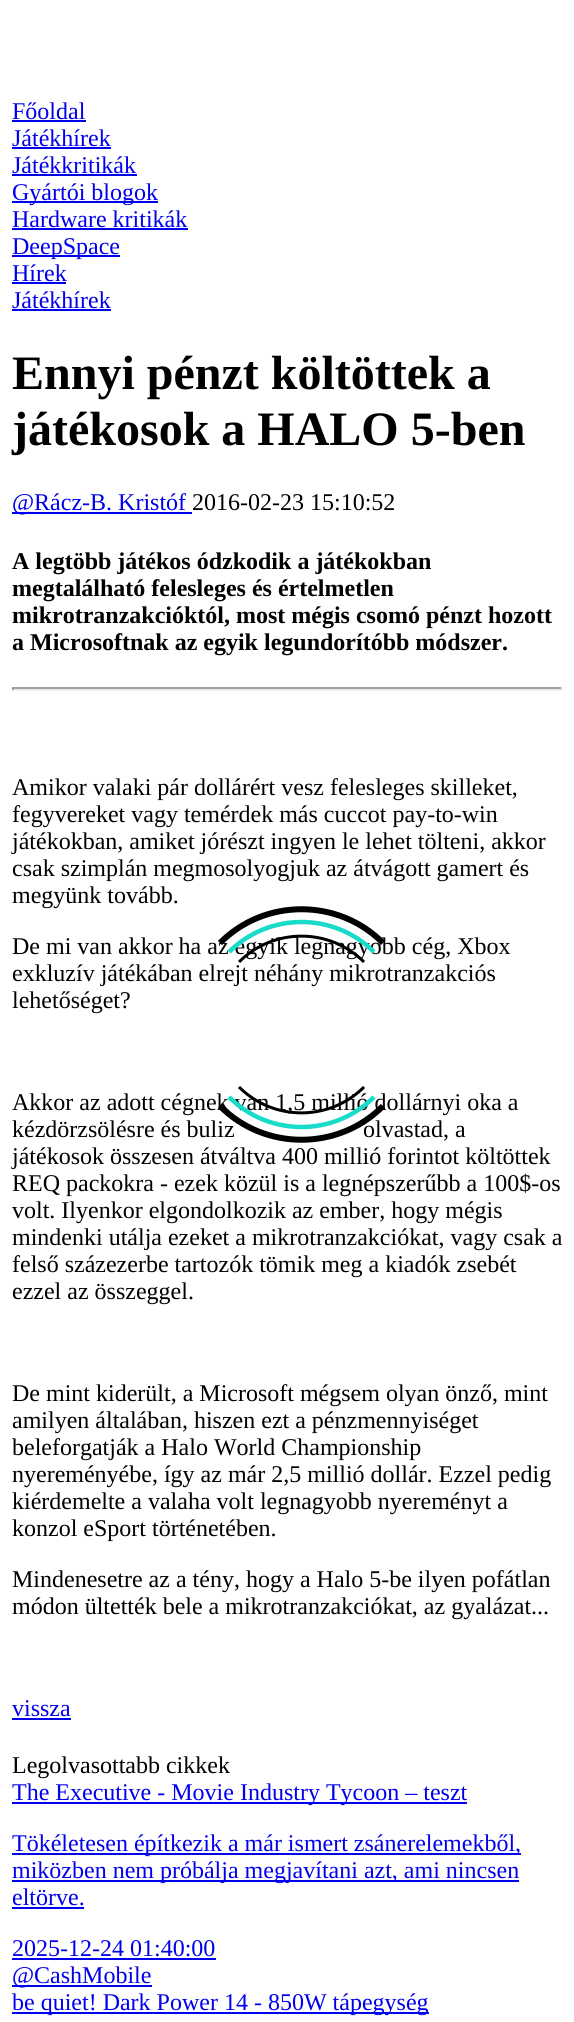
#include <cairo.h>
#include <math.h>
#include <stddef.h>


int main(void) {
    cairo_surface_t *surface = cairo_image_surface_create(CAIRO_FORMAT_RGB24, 574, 2022);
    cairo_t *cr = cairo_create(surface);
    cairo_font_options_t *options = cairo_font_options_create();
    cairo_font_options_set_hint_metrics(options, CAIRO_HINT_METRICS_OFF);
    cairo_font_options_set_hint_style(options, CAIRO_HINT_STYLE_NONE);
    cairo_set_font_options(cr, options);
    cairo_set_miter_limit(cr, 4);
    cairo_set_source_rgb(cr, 1, 1, 1);
    cairo_paint(cr);
    cairo_select_font_face(cr, "Liberation Serif", CAIRO_FONT_SLANT_NORMAL, CAIRO_FONT_WEIGHT_NORMAL);
    cairo_set_font_size(cr, 24);
    cairo_set_source_rgb(cr, 0, 0, 0.933);
    cairo_move_to(cr, 12, 119);
    cairo_show_text(cr, "Főoldal");
    cairo_rectangle(cr, 12, 120, 74, 2);
    cairo_fill(cr);
    cairo_move_to(cr, 12, 146);
    cairo_show_text(cr, "Játékhírek");
    cairo_rectangle(cr, 12, 147, 99, 2);
    cairo_fill(cr);
    cairo_move_to(cr, 12, 173);
    cairo_show_text(cr, "Játékkritikák");
    cairo_rectangle(cr, 12, 174, 125, 2);
    cairo_fill(cr);
    cairo_rectangle(cr, 12, 201, 146, 2);
    cairo_fill(cr);
    cairo_move_to(cr, 12, 200);
    cairo_show_text(cr, "Gyártói blogok");
    cairo_move_to(cr, 12, 227);
    cairo_show_text(cr, "Hardware kritikák");
    cairo_rectangle(cr, 12, 228, 176, 2);
    cairo_fill(cr);
    cairo_rectangle(cr, 12, 255, 108, 2);
    cairo_fill(cr);
    cairo_move_to(cr, 12, 254);
    cairo_show_text(cr, "DeepSpace");
    cairo_move_to(cr, 12, 281);
    cairo_show_text(cr, "Hírek");
    cairo_rectangle(cr, 12, 282, 54, 2);
    cairo_fill(cr);
    cairo_move_to(cr, 12, 308);
    cairo_show_text(cr, "Játékhírek");
    cairo_rectangle(cr, 12, 309, 99, 2);
    cairo_fill(cr);
    cairo_select_font_face(cr, "Liberation Serif", CAIRO_FONT_SLANT_NORMAL, CAIRO_FONT_WEIGHT_BOLD);
    cairo_set_font_size(cr, 48);
    cairo_set_source_rgb(cr, 0, 0, 0);
    cairo_move_to(cr, 12, 389);
    cairo_show_text(cr, "Ennyi pénzt költöttek a");
    cairo_move_to(cr, 12, 445);
    cairo_show_text(cr, "játékosok a HALO 5-ben");
    cairo_set_source_rgb(cr, 0, 0, 0.933);
    cairo_rectangle(cr, 12, 512, 180, 2);
    cairo_fill(cr);
    cairo_select_font_face(cr, "Liberation Serif", CAIRO_FONT_SLANT_NORMAL, CAIRO_FONT_WEIGHT_NORMAL);
    cairo_set_font_size(cr, 24);
    cairo_move_to(cr, 12, 510);
    cairo_show_text(cr, "@Rácz-B. Kristóf");
    cairo_set_source_rgb(cr, 0, 0, 0);
    cairo_move_to(cr, 192, 510);
    cairo_show_text(cr, "2016-02-23 15:10:52");
    cairo_select_font_face(cr, "Liberation Serif", CAIRO_FONT_SLANT_NORMAL, CAIRO_FONT_WEIGHT_BOLD);
    cairo_move_to(cr, 12, 569);
    cairo_show_text(cr, "A legtöbb játékos ódzkodik a játékokban");
    cairo_move_to(cr, 12, 596);
    cairo_show_text(cr, "megtalálható felesleges és értelmetlen");
    cairo_move_to(cr, 12, 623);
    cairo_show_text(cr, "mikrotranzakcióktól, most mégis csomó pénzt hozott");
    cairo_move_to(cr, 12, 650);
    cairo_show_text(cr, "a Microsoftnak az egyik legundorítóbb módszer.");
    cairo_set_source_rgb(cr, 0.624, 0.624, 0.624);
    cairo_rectangle(cr, 12, 687, 551, 2);
    cairo_fill(cr);
    cairo_set_source_rgb(cr, 0.933, 0.933, 0.933);
    cairo_rectangle(cr, 561, 687, 2, 3);
    cairo_fill(cr);
    cairo_rectangle(cr, 12, 689, 551, 2);
    cairo_fill(cr);
    cairo_set_source_rgb(cr, 0.624, 0.624, 0.624);
    cairo_rectangle(cr, 12, 687, 2, 3);
    cairo_fill(cr);
    cairo_select_font_face(cr, "Liberation Serif", CAIRO_FONT_SLANT_NORMAL, CAIRO_FONT_WEIGHT_NORMAL);
    cairo_set_source_rgb(cr, 0, 0, 0);
    cairo_move_to(cr, 12, 795);
    cairo_show_text(cr, "Amikor valaki pár dollárért vesz felesleges skilleket,");
    cairo_move_to(cr, 12, 822);
    cairo_show_text(cr, "fegyvereket vagy temérdek más cuccot pay-to-win");
    cairo_move_to(cr, 12, 849);
    cairo_show_text(cr, "játékokban, amiket jórészt ingyen le lehet tölteni, akkor");
    cairo_move_to(cr, 12, 876);
    cairo_show_text(cr, "csak szimplán megmosolyogjuk az átvágott gamert és");
    cairo_move_to(cr, 12, 903);
    cairo_show_text(cr, "megyünk tovább.");
    cairo_move_to(cr, 12, 954);
    cairo_show_text(cr, "De mi van akkor ha az egyik legnagyobb cég, Xbox");
    cairo_move_to(cr, 12, 981);
    cairo_show_text(cr, "exkluzív játékában elrejt néhány mikrotranzakciós");
    cairo_move_to(cr, 12, 1008);
    cairo_show_text(cr, "lehetőséget?");
    cairo_move_to(cr, 12, 1110);
    cairo_show_text(cr, "Akkor az adott cégnek van 1,5 millió dollárnyi oka a");
    cairo_move_to(cr, 12, 1137);
    cairo_show_text(cr, "kézdörzsölésre és buliz");
    cairo_move_to(cr, 363, 1137);
    cairo_show_text(cr, "olvastad, a");
    cairo_move_to(cr, 12, 1164);
    cairo_show_text(cr, "játékosok összesen átváltva 400 millió forintot költöttek");
    cairo_move_to(cr, 12, 1191);
    cairo_show_text(cr, "REQ packokra - ezek közül is a legnépszerűbb a 100$-os");
    cairo_move_to(cr, 12, 1218);
    cairo_show_text(cr, "volt. Ilyenkor elgondolkozik az ember, hogy mégis");
    cairo_move_to(cr, 12, 1245);
    cairo_show_text(cr, "mindenki utálja ezeket a mikrotranzakciókat, vagy csak a");
    cairo_move_to(cr, 12, 1272);
    cairo_show_text(cr, "felső százezerbe tartozók tömik meg a kiadók zsebét");
    cairo_move_to(cr, 12, 1299);
    cairo_show_text(cr, "ezzel az összeggel.");
    cairo_move_to(cr, 12, 1401);
    cairo_show_text(cr, "De mint kiderült, a Microsoft mégsem olyan önző, mint");
    cairo_move_to(cr, 12, 1428);
    cairo_show_text(cr, "amilyen általában, hiszen ezt a pénzmennyiséget");
    cairo_move_to(cr, 12, 1455);
    cairo_show_text(cr, "beleforgatják a Halo World Championship");
    cairo_move_to(cr, 12, 1482);
    cairo_show_text(cr, "nyereményébe, így az már 2,5 millió dollár. Ezzel pedig");
    cairo_move_to(cr, 12, 1509);
    cairo_show_text(cr, "kiérdemelte a valaha volt legnagyobb nyereményt a");
    cairo_move_to(cr, 12, 1536);
    cairo_show_text(cr, "konzol eSport történetében.");
    cairo_move_to(cr, 12, 1587);
    cairo_show_text(cr, "Mindenesetre az a tény, hogy a Halo 5-be ilyen pofátlan");
    cairo_move_to(cr, 12, 1614);
    cairo_show_text(cr, "módon ültették bele a mikrotranzakciókat, az gyalázat...");
    cairo_set_source_rgb(cr, 0, 0, 0.933);
    cairo_move_to(cr, 12, 1716);
    cairo_show_text(cr, "vissza");
    cairo_rectangle(cr, 12, 1718, 59, 2);
    cairo_fill(cr);
    cairo_set_source_rgb(cr, 0, 0, 0);
    cairo_move_to(cr, 12, 1773);
    cairo_show_text(cr, "Legolvasottabb cikkek");
    cairo_set_source_rgb(cr, 0, 0, 0.933);
    cairo_rectangle(cr, 12, 1802, 455, 2);
    cairo_fill(cr);
    cairo_move_to(cr, 12, 1800);
    cairo_show_text(cr, "The Executive - Movie Industry Tycoon – teszt");
    cairo_rectangle(cr, 12, 1853, 509, 2);
    cairo_fill(cr);
    cairo_move_to(cr, 12, 1851);
    cairo_show_text(cr, "Tökéletesen építkezik a már ismert zsánerelemekből,");
    cairo_rectangle(cr, 12, 1880, 507, 2);
    cairo_fill(cr);
    cairo_move_to(cr, 12, 1878);
    cairo_show_text(cr, "miközben nem próbálja megjavítani azt, ami nincsen");
    cairo_move_to(cr, 12, 1905);
    cairo_show_text(cr, "eltörve.");
    cairo_rectangle(cr, 12, 1907, 72, 2);
    cairo_fill(cr);
    cairo_move_to(cr, 12, 1956);
    cairo_show_text(cr, "2025-12-24 01:40:00");
    cairo_rectangle(cr, 12, 1958, 204, 2);
    cairo_fill(cr);
    cairo_rectangle(cr, 12, 1985, 140, 2);
    cairo_fill(cr);
    cairo_move_to(cr, 12, 1983);
    cairo_show_text(cr, "@CashMobile");
    cairo_rectangle(cr, 12, 2012, 417, 2);
    cairo_fill(cr);
    cairo_move_to(cr, 12, 2010);
    cairo_show_text(cr, "be quiet! Dark Power 14 - 850W tápegység");
    cairo_new_path(cr);
    cairo_move_to(cr, 220, 943);
    cairo_curve_to(cr, 264.5, 898, 338.5, 898, 383, 943);
    cairo_set_source_rgb(cr, 0, 0, 0);
    cairo_set_line_width(cr, 6);
    cairo_stroke(cr);
    cairo_new_path(cr);
    cairo_move_to(cr, 383, 1106);
    cairo_curve_to(cr, 338.5, 1151, 264.5, 1151, 220, 1106);
    cairo_stroke(cr);
    cairo_new_path(cr);
    cairo_move_to(cr, 229, 952);
    cairo_curve_to(cr, 269, 912, 334, 912, 374, 952);
    cairo_set_source_rgb(cr, 0.098, 0.859, 0.792);
    cairo_set_line_width(cr, 4.5);
    cairo_stroke(cr);
    cairo_new_path(cr);
    cairo_move_to(cr, 374, 1097);
    cairo_curve_to(cr, 334, 1137, 269, 1137, 229, 1097);
    cairo_stroke(cr);
    cairo_new_path(cr);
    cairo_move_to(cr, 239, 962);
    cairo_curve_to(cr, 273.5, 927.5, 329.5, 927.5, 364, 962);
    cairo_set_source_rgb(cr, 0, 0, 0);
    cairo_set_line_width(cr, 3);
    cairo_stroke(cr);
    cairo_new_path(cr);
    cairo_move_to(cr, 364, 1087);
    cairo_curve_to(cr, 329.5, 1121.5, 273.5, 1121.5, 239, 1087);
    cairo_stroke(cr);
    cairo_surface_write_to_png(surface, "page.png");
    cairo_font_options_destroy(options);
    cairo_destroy(cr);
    cairo_surface_destroy(surface);
    return 0;
}
